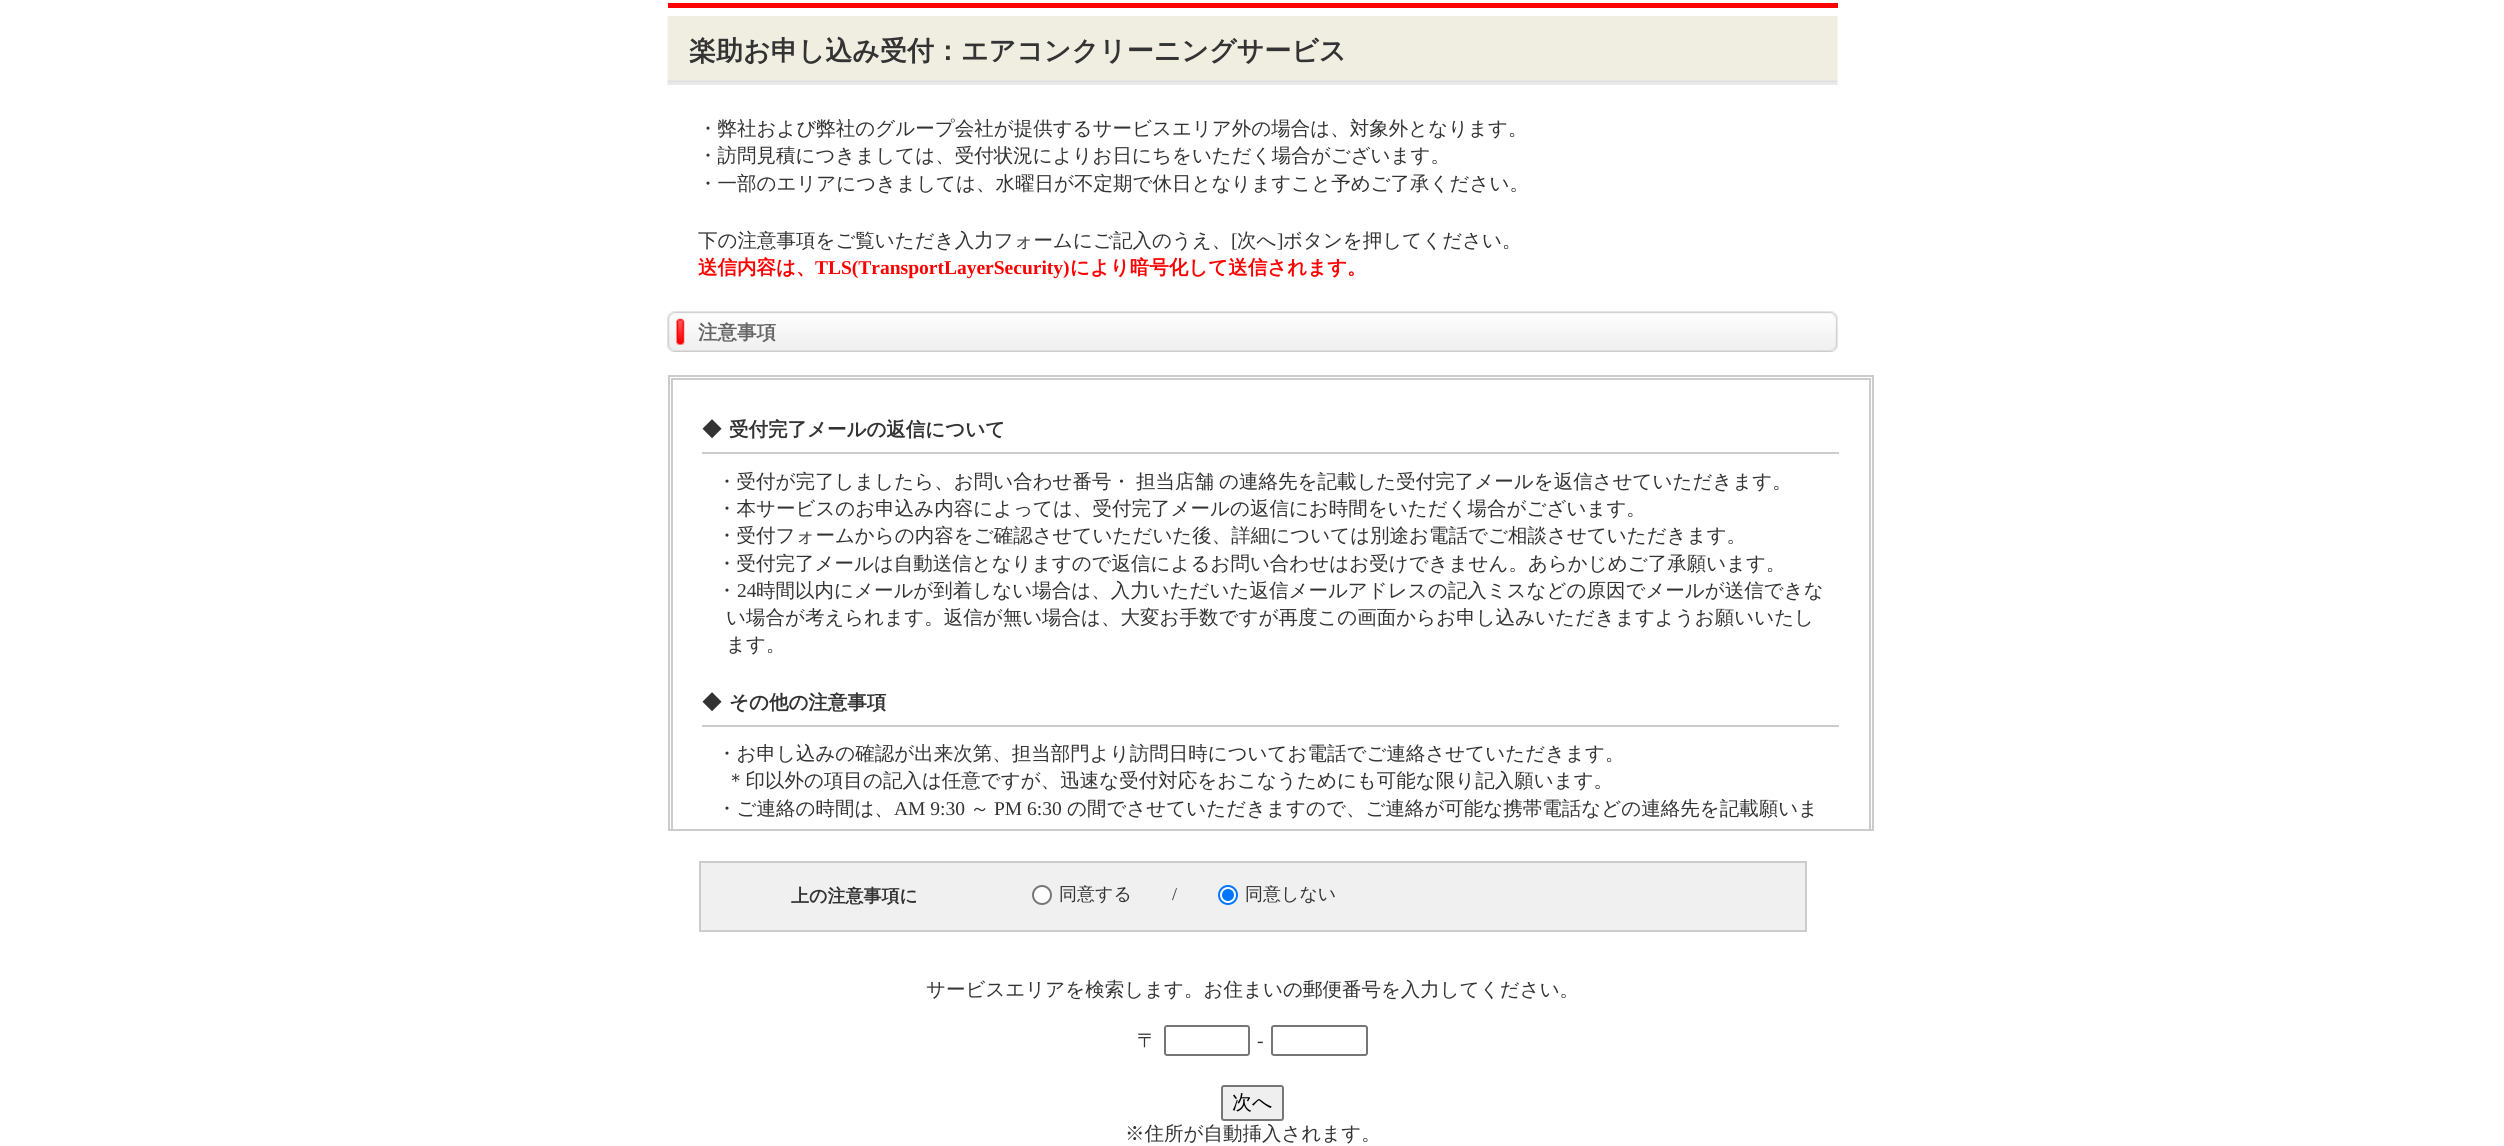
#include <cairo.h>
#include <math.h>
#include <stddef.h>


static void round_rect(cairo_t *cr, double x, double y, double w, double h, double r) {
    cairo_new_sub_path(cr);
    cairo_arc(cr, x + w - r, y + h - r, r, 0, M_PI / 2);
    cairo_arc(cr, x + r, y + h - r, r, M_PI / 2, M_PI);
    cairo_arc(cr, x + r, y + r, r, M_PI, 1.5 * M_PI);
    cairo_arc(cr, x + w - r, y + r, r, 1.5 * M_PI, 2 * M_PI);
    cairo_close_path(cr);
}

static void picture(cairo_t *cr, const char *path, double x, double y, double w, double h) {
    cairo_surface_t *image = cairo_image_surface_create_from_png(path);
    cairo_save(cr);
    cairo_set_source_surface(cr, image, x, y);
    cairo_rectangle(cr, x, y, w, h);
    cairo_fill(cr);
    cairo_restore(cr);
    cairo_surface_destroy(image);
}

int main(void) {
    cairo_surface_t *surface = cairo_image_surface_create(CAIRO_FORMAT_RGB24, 2504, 1146);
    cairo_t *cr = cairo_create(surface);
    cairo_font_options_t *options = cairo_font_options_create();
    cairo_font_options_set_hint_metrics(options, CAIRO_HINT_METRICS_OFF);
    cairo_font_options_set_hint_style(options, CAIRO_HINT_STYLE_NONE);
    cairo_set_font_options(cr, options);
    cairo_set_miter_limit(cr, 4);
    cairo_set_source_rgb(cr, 1, 1, 1);
    cairo_paint(cr);
    cairo_set_source_rgb(cr, 0.996, 0, 0);
    cairo_rectangle(cr, 668, 3, 1170, 5);
    cairo_fill(cr);
    picture(cr, "img1.png", 667, 16, 1171, 69);
    cairo_select_font_face(cr, "WenQuanYi Zen Hei", CAIRO_FONT_SLANT_NORMAL, CAIRO_FONT_WEIGHT_BOLD);
    cairo_set_font_size(cr, 27);
    cairo_set_source_rgb(cr, 0.2, 0.2, 0.2);
    cairo_move_to(cr, 689, 60);
    cairo_show_text(cr, "楽助お申し込み受付：エアコンクリーニングサービス");
    cairo_select_font_face(cr, "WenQuanYi Zen Hei Medium", CAIRO_FONT_SLANT_NORMAL, CAIRO_FONT_WEIGHT_NORMAL);
    cairo_set_font_size(cr, 19.5);
    cairo_move_to(cr, 698, 135);
    cairo_show_text(cr, "・弊社および弊社のグループ会社が提供するサービスエリア外の場合は、対象外となります。");
    cairo_move_to(cr, 698, 162);
    cairo_show_text(cr, "・訪問見積につきましては、受付状況によりお日にちをいただく場合がございます。");
    cairo_move_to(cr, 698, 190);
    cairo_show_text(cr, "・一部のエリアにつきましては、水曜日が不定期で休日となりますこと予めご了承ください。");
    cairo_move_to(cr, 698, 247);
    cairo_show_text(cr, "下の注意事項をご覧いただき入力フォームにご記入のうえ、");
    cairo_select_font_face(cr, "Liberation Serif", CAIRO_FONT_SLANT_NORMAL, CAIRO_FONT_WEIGHT_NORMAL);
    cairo_move_to(cr, 1231, 247);
    cairo_show_text(cr, "[");
    cairo_select_font_face(cr, "WenQuanYi Zen Hei Medium", CAIRO_FONT_SLANT_NORMAL, CAIRO_FONT_WEIGHT_NORMAL);
    cairo_move_to(cr, 1237, 247);
    cairo_show_text(cr, "次へ");
    cairo_select_font_face(cr, "Liberation Serif", CAIRO_FONT_SLANT_NORMAL, CAIRO_FONT_WEIGHT_NORMAL);
    cairo_move_to(cr, 1277, 247);
    cairo_show_text(cr, "]");
    cairo_select_font_face(cr, "WenQuanYi Zen Hei Medium", CAIRO_FONT_SLANT_NORMAL, CAIRO_FONT_WEIGHT_NORMAL);
    cairo_move_to(cr, 1283, 247);
    cairo_show_text(cr, "ボタンを押してください。");
    cairo_select_font_face(cr, "WenQuanYi Zen Hei", CAIRO_FONT_SLANT_NORMAL, CAIRO_FONT_WEIGHT_BOLD);
    cairo_set_source_rgb(cr, 1, 0, 0);
    cairo_move_to(cr, 698, 274);
    cairo_show_text(cr, "送信内容は、");
    cairo_select_font_face(cr, "Liberation Serif", CAIRO_FONT_SLANT_NORMAL, CAIRO_FONT_WEIGHT_BOLD);
    cairo_move_to(cr, 815, 274);
    cairo_show_text(cr, "TLS(TransportLayerSecurity)");
    cairo_select_font_face(cr, "WenQuanYi Zen Hei", CAIRO_FONT_SLANT_NORMAL, CAIRO_FONT_WEIGHT_BOLD);
    cairo_move_to(cr, 1070, 274);
    cairo_show_text(cr, "により暗号化して送信されます。");
    picture(cr, "img2.png", 667, 311, 1171, 41);
    cairo_set_source_rgb(cr, 0.4, 0.4, 0.4);
    cairo_move_to(cr, 698, 339);
    cairo_show_text(cr, "注意事項");
    cairo_rectangle(cr, 669, 376, 1204, 454);
    cairo_set_source_rgb(cr, 0.8, 0.8, 0.8);
    cairo_stroke(cr);
    cairo_set_source_rgb(cr, 0.941, 0.941, 0.941);
    cairo_rectangle(cr, 701, 863, 1104, 67);
    cairo_fill(cr);
    cairo_set_source_rgb(cr, 0.8, 0.8, 0.8);
    cairo_rectangle(cr, 699, 861, 1107, 2);
    cairo_fill(cr);
    cairo_rectangle(cr, 1805, 861, 2, 71);
    cairo_fill(cr);
    cairo_rectangle(cr, 699, 930, 1107, 2);
    cairo_fill(cr);
    cairo_rectangle(cr, 699, 861, 2, 71);
    cairo_fill(cr);
    cairo_set_source_rgb(cr, 1, 1, 1);
    cairo_arc(cr, 1042, 895, 9, 0, 2 * M_PI);
    cairo_fill_preserve(cr);
    cairo_set_source_rgb(cr, 0.463, 0.463, 0.463);
    cairo_stroke(cr);
    cairo_set_source_rgb(cr, 1, 1, 1);
    cairo_arc(cr, 1228, 895, 9, 0, 2 * M_PI);
    cairo_fill_preserve(cr);
    cairo_set_source_rgb(cr, 0, 0.459, 1);
    cairo_stroke(cr);
    cairo_arc(cr, 1228, 895, 6, 0, 2 * M_PI);
    cairo_fill(cr);
    round_rect(cr, 1165, 1026, 84, 29, 2);
    cairo_set_source_rgb(cr, 0.463, 0.463, 0.463);
    cairo_stroke(cr);
    round_rect(cr, 1272, 1026, 95, 29, 2);
    cairo_stroke(cr);
    cairo_save(cr);
    cairo_rectangle(cr, 669, 377, 1203, 453);
    cairo_clip(cr);
    cairo_rectangle(cr, 672, 379, 1198, 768);
    cairo_set_source_rgb(cr, 0.8, 0.8, 0.8);
    cairo_stroke(cr);
    cairo_restore(cr);
    cairo_set_source_rgb(cr, 0.8, 0.8, 0.8);
    cairo_rectangle(cr, 702, 452, 1137, 2);
    cairo_fill(cr);
    cairo_set_source_rgb(cr, 0.2, 0.2, 0.2);
    cairo_move_to(cr, 702, 436);
    cairo_show_text(cr, "◆");
    cairo_move_to(cr, 729, 436);
    cairo_show_text(cr, "受付完了メールの返信について");
    cairo_select_font_face(cr, "WenQuanYi Zen Hei Medium", CAIRO_FONT_SLANT_NORMAL, CAIRO_FONT_WEIGHT_NORMAL);
    cairo_move_to(cr, 717, 488);
    cairo_show_text(cr, "・受付が完了しましたら、お問い合わせ番号・");
    cairo_move_to(cr, 1136, 488);
    cairo_show_text(cr, "担当店舗");
    cairo_move_to(cr, 1219, 488);
    cairo_show_text(cr, "の連絡先を記載した受付完了メールを返信させていただきます。");
    cairo_move_to(cr, 717, 515);
    cairo_show_text(cr, "・本サービスのお申込み内容によっては、受付完了メールの返信にお時間をいただく場合がございます。");
    cairo_move_to(cr, 717, 542);
    cairo_show_text(cr, "・受付フォームからの内容をご確認させていただいた後、詳細については別途お電話でご相談させていただきます。");
    cairo_move_to(cr, 717, 570);
    cairo_show_text(cr, "・受付完了メールは自動送信となりますので返信によるお問い合わせはお受けできません。あらかじめご了承願います。");
    cairo_move_to(cr, 717, 597);
    cairo_show_text(cr, "・");
    cairo_select_font_face(cr, "Liberation Serif", CAIRO_FONT_SLANT_NORMAL, CAIRO_FONT_WEIGHT_NORMAL);
    cairo_move_to(cr, 737, 597);
    cairo_show_text(cr, "24");
    cairo_select_font_face(cr, "WenQuanYi Zen Hei Medium", CAIRO_FONT_SLANT_NORMAL, CAIRO_FONT_WEIGHT_NORMAL);
    cairo_move_to(cr, 756, 597);
    cairo_show_text(cr, "時間以内にメールが到着しない場合は、入力いただいた返信メールアドレスの記入ミスなどの原因でメールが送信できな");
    cairo_move_to(cr, 726, 624);
    cairo_show_text(cr, "い場合が考えられます。返信が無い場合は、大変お手数ですが再度この画面からお申し込みいただきますようお願いいたし");
    cairo_move_to(cr, 726, 651);
    cairo_show_text(cr, "ます。");
    cairo_set_source_rgb(cr, 0.8, 0.8, 0.8);
    cairo_rectangle(cr, 702, 725, 1137, 2);
    cairo_fill(cr);
    cairo_select_font_face(cr, "WenQuanYi Zen Hei", CAIRO_FONT_SLANT_NORMAL, CAIRO_FONT_WEIGHT_BOLD);
    cairo_set_source_rgb(cr, 0.2, 0.2, 0.2);
    cairo_move_to(cr, 702, 709);
    cairo_show_text(cr, "◆");
    cairo_move_to(cr, 729, 709);
    cairo_show_text(cr, "その他の注意事項");
    cairo_select_font_face(cr, "WenQuanYi Zen Hei Medium", CAIRO_FONT_SLANT_NORMAL, CAIRO_FONT_WEIGHT_NORMAL);
    cairo_move_to(cr, 717, 760);
    cairo_show_text(cr, "・お申し込みの確認が出来次第、担当部門より訪問日時についてお電話でご連絡させていただきます。");
    cairo_move_to(cr, 726, 787);
    cairo_show_text(cr, "＊印以外の項目の記入は任意ですが、迅速な受付対応をおこなうためにも可能な限り記入願います。");
    cairo_move_to(cr, 717, 815);
    cairo_show_text(cr, "・ご連絡の時間は、");
    cairo_select_font_face(cr, "Liberation Serif", CAIRO_FONT_SLANT_NORMAL, CAIRO_FONT_WEIGHT_NORMAL);
    cairo_move_to(cr, 894, 815);
    cairo_show_text(cr, "AM 9:30");
    cairo_select_font_face(cr, "WenQuanYi Zen Hei Medium", CAIRO_FONT_SLANT_NORMAL, CAIRO_FONT_WEIGHT_NORMAL);
    cairo_move_to(cr, 970, 815);
    cairo_show_text(cr, "～");
    cairo_select_font_face(cr, "Liberation Serif", CAIRO_FONT_SLANT_NORMAL, CAIRO_FONT_WEIGHT_NORMAL);
    cairo_move_to(cr, 994, 815);
    cairo_show_text(cr, "PM 6:30");
    cairo_select_font_face(cr, "WenQuanYi Zen Hei Medium", CAIRO_FONT_SLANT_NORMAL, CAIRO_FONT_WEIGHT_NORMAL);
    cairo_move_to(cr, 1067, 815);
    cairo_show_text(cr, "の間でさせていただきますので、ご連絡が可能な携帯電話などの連絡先を記載願いま");
    cairo_select_font_face(cr, "WenQuanYi Zen Hei", CAIRO_FONT_SLANT_NORMAL, CAIRO_FONT_WEIGHT_BOLD);
    cairo_set_font_size(cr, 18);
    cairo_move_to(cr, 791, 902);
    cairo_show_text(cr, "上の注意事項に");
    cairo_select_font_face(cr, "WenQuanYi Zen Hei Medium", CAIRO_FONT_SLANT_NORMAL, CAIRO_FONT_WEIGHT_NORMAL);
    cairo_move_to(cr, 1059, 900);
    cairo_show_text(cr, "同意する");
    cairo_select_font_face(cr, "Liberation Serif", CAIRO_FONT_SLANT_NORMAL, CAIRO_FONT_WEIGHT_NORMAL);
    cairo_move_to(cr, 1172, 900);
    cairo_show_text(cr, "/");
    cairo_select_font_face(cr, "WenQuanYi Zen Hei Medium", CAIRO_FONT_SLANT_NORMAL, CAIRO_FONT_WEIGHT_NORMAL);
    cairo_move_to(cr, 1245, 900);
    cairo_show_text(cr, "同意しない");
    cairo_set_font_size(cr, 19.5);
    cairo_move_to(cr, 926, 996);
    cairo_show_text(cr, "サービスエリアを検索します。お住まいの郵便番号を入力してください。");
    cairo_move_to(cr, 1137, 1047);
    cairo_show_text(cr, "〒");
    cairo_select_font_face(cr, "Liberation Serif", CAIRO_FONT_SLANT_NORMAL, CAIRO_FONT_WEIGHT_NORMAL);
    cairo_move_to(cr, 1257, 1047);
    cairo_show_text(cr, "-");
    cairo_set_source_rgb(cr, 0.937, 0.937, 0.937);
    round_rect(cr, 1222, 1086, 61, 34, 2);
    cairo_fill_preserve(cr);
    cairo_set_source_rgb(cr, 0.463, 0.463, 0.463);
    cairo_stroke(cr);
    cairo_select_font_face(cr, "WenQuanYi Zen Hei Medium", CAIRO_FONT_SLANT_NORMAL, CAIRO_FONT_WEIGHT_NORMAL);
    cairo_set_font_size(cr, 20);
    cairo_set_source_rgb(cr, 0, 0, 0);
    cairo_move_to(cr, 1232, 1109);
    cairo_show_text(cr, "次へ");
    cairo_set_font_size(cr, 19.5);
    cairo_set_source_rgb(cr, 0.2, 0.2, 0.2);
    cairo_move_to(cr, 1125, 1140);
    cairo_show_text(cr, "※住所が自動挿入されます。");
    cairo_surface_write_to_png(surface, "page.png");
    cairo_font_options_destroy(options);
    cairo_destroy(cr);
    cairo_surface_destroy(surface);
    return 0;
}
